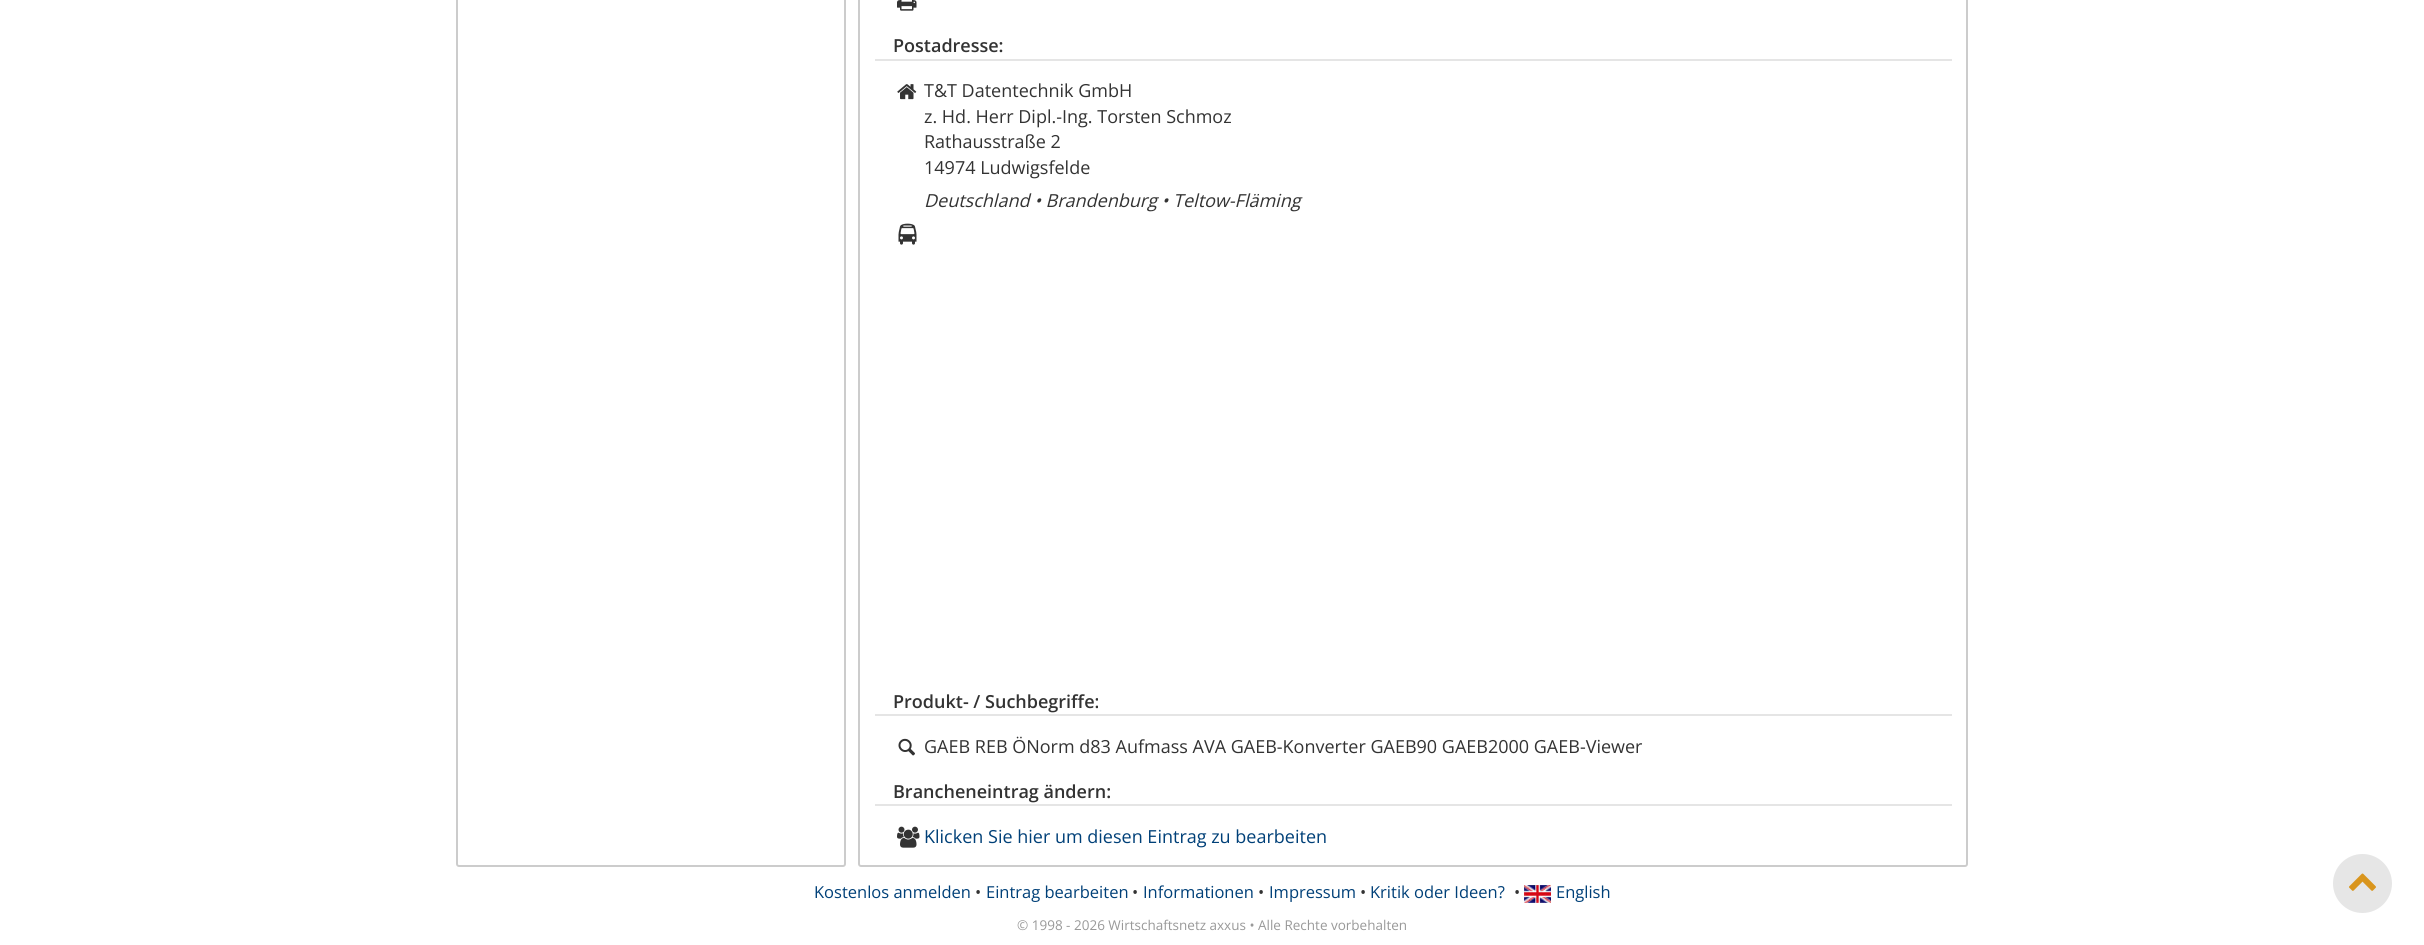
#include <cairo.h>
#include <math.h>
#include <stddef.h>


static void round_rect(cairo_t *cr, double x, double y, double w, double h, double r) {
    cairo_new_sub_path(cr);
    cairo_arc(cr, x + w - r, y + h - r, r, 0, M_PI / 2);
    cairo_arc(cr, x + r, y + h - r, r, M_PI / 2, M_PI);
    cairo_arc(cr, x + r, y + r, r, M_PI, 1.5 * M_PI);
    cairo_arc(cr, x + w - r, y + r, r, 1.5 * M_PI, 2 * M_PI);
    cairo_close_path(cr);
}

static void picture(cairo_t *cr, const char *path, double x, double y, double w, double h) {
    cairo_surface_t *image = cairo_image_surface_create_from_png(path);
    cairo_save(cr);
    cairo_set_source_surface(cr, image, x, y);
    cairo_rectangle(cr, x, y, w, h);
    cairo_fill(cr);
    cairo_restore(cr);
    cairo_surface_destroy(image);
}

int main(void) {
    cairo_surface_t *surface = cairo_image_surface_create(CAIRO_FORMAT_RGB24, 2424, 945);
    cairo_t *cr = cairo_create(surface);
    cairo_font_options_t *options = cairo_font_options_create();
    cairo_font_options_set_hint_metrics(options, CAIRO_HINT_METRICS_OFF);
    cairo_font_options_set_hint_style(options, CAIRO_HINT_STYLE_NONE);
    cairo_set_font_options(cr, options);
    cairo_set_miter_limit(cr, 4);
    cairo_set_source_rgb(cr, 1, 1, 1);
    cairo_paint(cr);
    round_rect(cr, 457, -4, 388, 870, 2);
    cairo_set_source_rgb(cr, 0.8, 0.8, 0.8);
    cairo_stroke(cr);
    round_rect(cr, 859, -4, 1108, 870, 2);
    cairo_stroke(cr);
    picture(cr, "img1.png", 897, 0, 20, 11);
    cairo_select_font_face(cr, "Open Sans SemiBold", CAIRO_FONT_SLANT_NORMAL, CAIRO_FONT_WEIGHT_NORMAL);
    cairo_set_font_size(cr, 18);
    cairo_set_source_rgb(cr, 0.2, 0.2, 0.2);
    cairo_move_to(cr, 893, 52);
    cairo_show_text(cr, "Postadresse:");
    cairo_set_source_rgb(cr, 0.898, 0.898, 0.898);
    cairo_rectangle(cr, 875, 59, 1077, 2);
    cairo_fill(cr);
    picture(cr, "img2.png", 897, 84, 20, 16);
    cairo_select_font_face(cr, "Open Sans", CAIRO_FONT_SLANT_NORMAL, CAIRO_FONT_WEIGHT_NORMAL);
    cairo_set_source_rgb(cr, 0.2, 0.2, 0.2);
    cairo_move_to(cr, 924, 97);
    cairo_show_text(cr, "T&T Datentechnik GmbH");
    cairo_move_to(cr, 924, 123);
    cairo_show_text(cr, "z. Hd. Herr Dipl.-Ing. Torsten Schmoz");
    cairo_move_to(cr, 924, 148);
    cairo_show_text(cr, "Rathausstraße 2");
    cairo_move_to(cr, 924, 174);
    cairo_show_text(cr, "14974 Ludwigsfelde");
    cairo_select_font_face(cr, "Open Sans", CAIRO_FONT_SLANT_ITALIC, CAIRO_FONT_WEIGHT_NORMAL);
    cairo_move_to(cr, 924, 207);
    cairo_show_text(cr, "Deutschland • Brandenburg • Teltow-Fläming");
    picture(cr, "img3.png", 898, 223, 19, 22);
    cairo_select_font_face(cr, "Open Sans SemiBold", CAIRO_FONT_SLANT_NORMAL, CAIRO_FONT_WEIGHT_NORMAL);
    cairo_move_to(cr, 893, 708);
    cairo_show_text(cr, "Produkt- / Suchbegriffe:");
    cairo_set_source_rgb(cr, 0.898, 0.898, 0.898);
    cairo_rectangle(cr, 875, 714, 1077, 2);
    cairo_fill(cr);
    picture(cr, "img4.png", 898, 738, 17, 18);
    cairo_select_font_face(cr, "Open Sans", CAIRO_FONT_SLANT_NORMAL, CAIRO_FONT_WEIGHT_NORMAL);
    cairo_set_source_rgb(cr, 0.2, 0.2, 0.2);
    cairo_move_to(cr, 924, 753);
    cairo_show_text(cr, "GAEB REB ÖNorm d83 Aufmass AVA GAEB-Konverter GAEB90 GAEB2000 GAEB-Viewer");
    cairo_select_font_face(cr, "Open Sans SemiBold", CAIRO_FONT_SLANT_NORMAL, CAIRO_FONT_WEIGHT_NORMAL);
    cairo_move_to(cr, 893, 798);
    cairo_show_text(cr, "Brancheneintrag ändern:");
    cairo_set_source_rgb(cr, 0.898, 0.898, 0.898);
    cairo_rectangle(cr, 875, 804, 1077, 2);
    cairo_fill(cr);
    picture(cr, "img5.png", 897, 826, 23, 22);
    cairo_select_font_face(cr, "Open Sans", CAIRO_FONT_SLANT_NORMAL, CAIRO_FONT_WEIGHT_NORMAL);
    cairo_set_source_rgb(cr, 0, 0.251, 0.471);
    cairo_move_to(cr, 924, 843);
    cairo_show_text(cr, "Klicken Sie hier um diesen Eintrag zu bearbeiten");
    cairo_set_font_size(cr, 16.5);
    cairo_move_to(cr, 814, 898);
    cairo_show_text(cr, "Kostenlos anmelden");
    cairo_set_source_rgb(cr, 0.2, 0.2, 0.2);
    cairo_move_to(cr, 975, 898);
    cairo_show_text(cr, "•");
    cairo_set_source_rgb(cr, 0, 0.251, 0.471);
    cairo_move_to(cr, 986, 898);
    cairo_show_text(cr, "Eintrag bearbeiten");
    cairo_set_source_rgb(cr, 0.2, 0.2, 0.2);
    cairo_move_to(cr, 1132, 898);
    cairo_show_text(cr, "•");
    cairo_set_source_rgb(cr, 0, 0.251, 0.471);
    cairo_move_to(cr, 1143, 898);
    cairo_show_text(cr, "Informationen");
    cairo_set_source_rgb(cr, 0.2, 0.2, 0.2);
    cairo_move_to(cr, 1258, 898);
    cairo_show_text(cr, "•");
    cairo_set_source_rgb(cr, 0, 0.251, 0.471);
    cairo_move_to(cr, 1269, 898);
    cairo_show_text(cr, "Impressum");
    cairo_set_source_rgb(cr, 0.2, 0.2, 0.2);
    cairo_move_to(cr, 1360, 898);
    cairo_show_text(cr, "•");
    cairo_set_source_rgb(cr, 0, 0.251, 0.471);
    cairo_move_to(cr, 1370, 898);
    cairo_show_text(cr, "Kritik oder Ideen?");
    cairo_set_source_rgb(cr, 0.2, 0.2, 0.2);
    cairo_move_to(cr, 1514, 898);
    cairo_show_text(cr, "•");
    picture(cr, "img6.png", 1524, 885, 27, 18);
    cairo_set_source_rgb(cr, 0, 0.251, 0.471);
    cairo_move_to(cr, 1556, 898);
    cairo_show_text(cr, "English");
    cairo_set_font_size(cr, 13.5);
    cairo_set_source_rgb(cr, 0.6, 0.6, 0.6);
    cairo_move_to(cr, 1017, 930);
    cairo_show_text(cr, "© 1998 - 2026 Wirtschaftsnetz axxus • Alle Rechte vorbehalten");
    cairo_set_source_rgb(cr, 0.902, 0.902, 0.902);
    cairo_new_path(cr);
    cairo_arc(cr, 2362.5, 883.5, 30.5, 0, 2 * M_PI);
    cairo_fill_preserve(cr);
    cairo_set_source_rgb(cr, 1, 1, 1);
    cairo_stroke(cr);
    picture(cr, "img7.png", 2349, 873, 27, 18);
    cairo_surface_write_to_png(surface, "page.png");
    cairo_font_options_destroy(options);
    cairo_destroy(cr);
    cairo_surface_destroy(surface);
    return 0;
}
